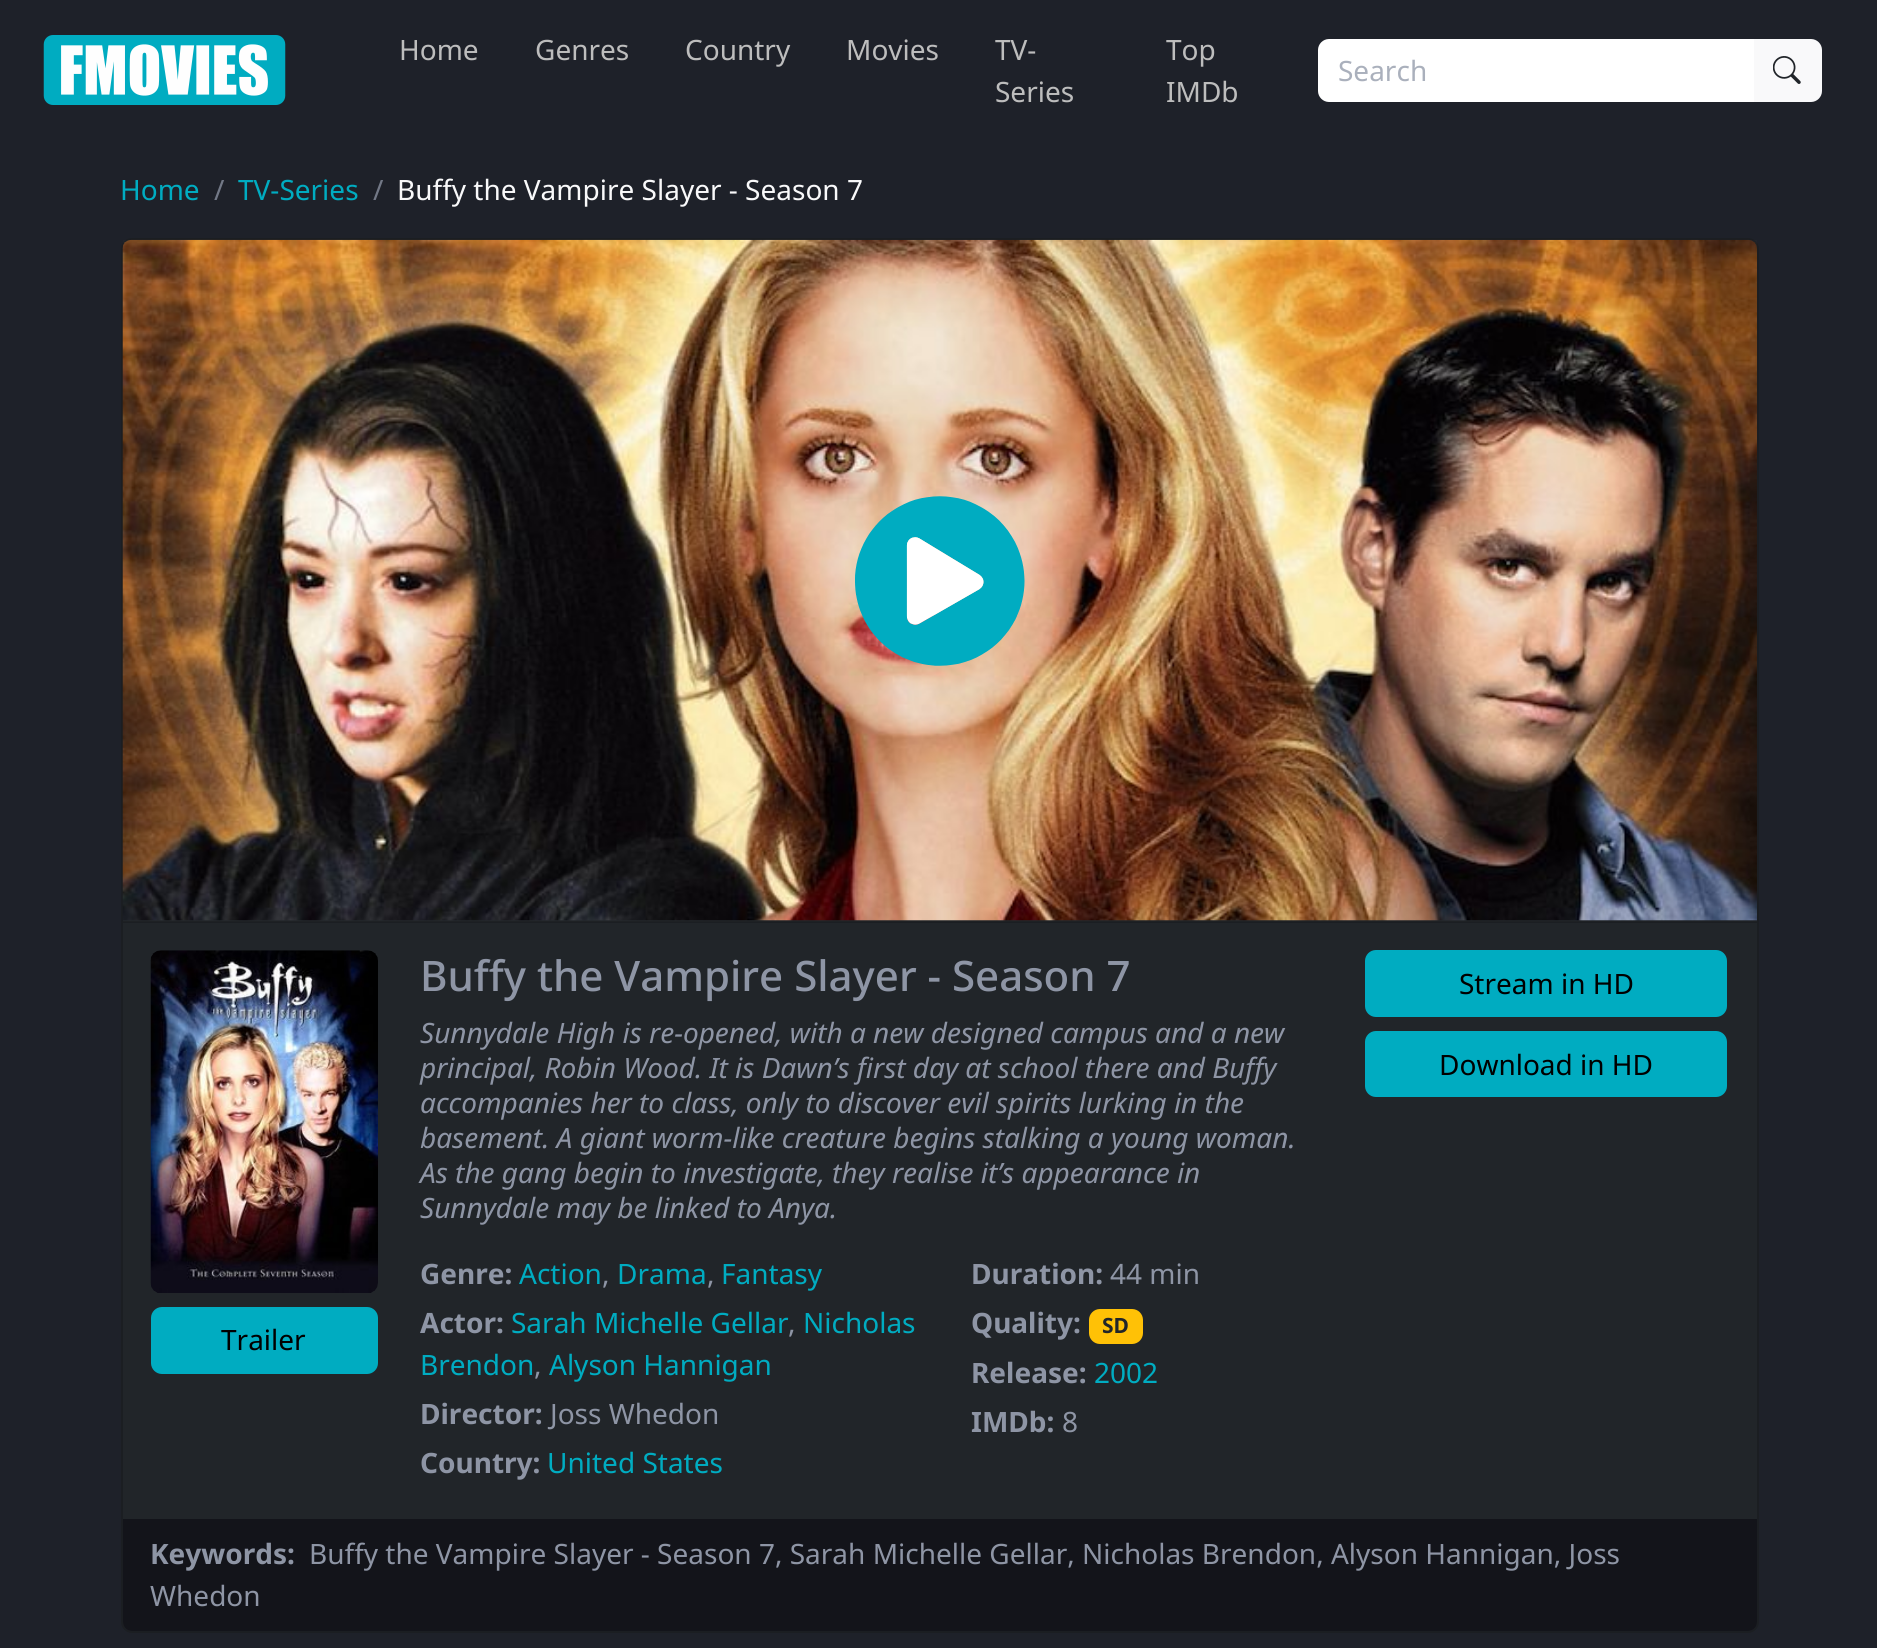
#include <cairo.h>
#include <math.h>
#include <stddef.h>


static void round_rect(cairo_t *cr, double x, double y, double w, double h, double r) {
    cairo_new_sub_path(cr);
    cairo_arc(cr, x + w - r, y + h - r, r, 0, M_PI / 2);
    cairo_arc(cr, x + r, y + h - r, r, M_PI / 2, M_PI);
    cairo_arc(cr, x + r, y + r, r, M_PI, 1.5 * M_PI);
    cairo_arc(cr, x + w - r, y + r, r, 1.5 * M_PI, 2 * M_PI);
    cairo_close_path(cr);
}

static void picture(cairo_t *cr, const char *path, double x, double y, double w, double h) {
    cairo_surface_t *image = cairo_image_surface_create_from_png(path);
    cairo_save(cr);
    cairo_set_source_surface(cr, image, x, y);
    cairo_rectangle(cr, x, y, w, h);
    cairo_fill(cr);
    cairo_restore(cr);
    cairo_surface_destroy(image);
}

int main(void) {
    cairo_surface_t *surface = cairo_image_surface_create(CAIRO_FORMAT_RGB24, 1877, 1648);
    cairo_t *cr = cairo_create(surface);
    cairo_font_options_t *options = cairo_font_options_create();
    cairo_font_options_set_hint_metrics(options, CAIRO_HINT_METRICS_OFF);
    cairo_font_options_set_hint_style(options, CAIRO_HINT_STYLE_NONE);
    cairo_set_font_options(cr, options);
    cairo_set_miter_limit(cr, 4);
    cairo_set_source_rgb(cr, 0.118, 0.129, 0.161);
    cairo_paint(cr);
    picture(cr, "img1.png", 43, 35, 243, 70);
    cairo_select_font_face(cr, "Noto Sans", CAIRO_FONT_SLANT_NORMAL, CAIRO_FONT_WEIGHT_NORMAL);
    cairo_set_font_size(cr, 28);
    cairo_set_source_rgb(cr, 0.741, 0.741, 0.741);
    cairo_move_to(cr, 399, 60);
    cairo_show_text(cr, "Home");
    cairo_move_to(cr, 535, 60);
    cairo_show_text(cr, "Genres");
    cairo_move_to(cr, 685, 60);
    cairo_show_text(cr, "Country");
    cairo_move_to(cr, 846, 60);
    cairo_show_text(cr, "Movies");
    cairo_move_to(cr, 995, 60);
    cairo_show_text(cr, "TV-");
    cairo_move_to(cr, 995, 102);
    cairo_show_text(cr, "Series");
    cairo_move_to(cr, 1166, 60);
    cairo_show_text(cr, "Top");
    cairo_move_to(cr, 1166, 102);
    cairo_show_text(cr, "IMDb");
    cairo_set_source_rgb(cr, 0.973, 0.976, 0.98);
    cairo_new_path(cr);
    cairo_move_to(cr, 1752, 39);
    cairo_line_to(cr, 1811, 39);
    cairo_curve_to(cr, 1817, 39, 1822, 44, 1822, 50);
    cairo_line_to(cr, 1822, 91);
    cairo_curve_to(cr, 1822, 97, 1817, 102, 1811, 102);
    cairo_line_to(cr, 1752, 102);
    cairo_close_path(cr);
    cairo_fill(cr);
    cairo_set_source_rgb(cr, 1, 1, 1);
    cairo_new_path(cr);
    cairo_move_to(cr, 1329, 39);
    cairo_line_to(cr, 1754, 39);
    cairo_line_to(cr, 1754, 102);
    cairo_line_to(cr, 1329, 102);
    cairo_curve_to(cr, 1323, 102, 1318, 97, 1318, 91);
    cairo_line_to(cr, 1318, 50);
    cairo_curve_to(cr, 1318, 44, 1323, 39, 1329, 39);
    cairo_close_path(cr);
    cairo_fill(cr);
    cairo_set_source_rgb(cr, 0.667, 0.69, 0.737);
    cairo_move_to(cr, 1338, 81);
    cairo_show_text(cr, "Search");
    picture(cr, "img2.png", 1773, 56, 28, 28);
    cairo_set_source_rgb(cr, 0, 0.675, 0.757);
    cairo_move_to(cr, 120, 200);
    cairo_show_text(cr, "Home");
    cairo_set_source_rgb(cr, 0.447, 0.471, 0.525);
    cairo_move_to(cr, 214, 200);
    cairo_show_text(cr, "/");
    cairo_set_source_rgb(cr, 0, 0.675, 0.757);
    cairo_move_to(cr, 238, 200);
    cairo_show_text(cr, "TV-Series");
    cairo_set_source_rgb(cr, 0.447, 0.471, 0.525);
    cairo_move_to(cr, 373, 200);
    cairo_show_text(cr, "/");
    cairo_set_source_rgb(cr, 0.973, 0.976, 0.98);
    cairo_move_to(cr, 397, 200);
    cairo_show_text(cr, "Buffy the Vampire Slayer - Season 7");
    cairo_set_source_rgb(cr, 0.129, 0.145, 0.161);
    round_rect(cr, 122, 239, 1636, 1393, 10);
    cairo_fill_preserve(cr);
    cairo_set_source_rgb(cr, 0.106, 0.118, 0.133);
    cairo_stroke(cr);
    cairo_set_source_rgba(cr, 0.557, 0.584, 0.647, 0.03);
    cairo_rectangle(cr, 123, 240, 1634, 682);
    cairo_fill(cr);
    cairo_set_source_rgba(cr, 0, 0, 0, 0.18);
    cairo_rectangle(cr, 123, 921, 1634, 2);
    cairo_fill(cr);
    picture(cr, "img3.png", 122, 239, 1635, 682);
    picture(cr, "img4.png", 855, 496, 170, 170);
    cairo_select_font_face(cr, "Noto Sans Medium", CAIRO_FONT_SLANT_NORMAL, CAIRO_FONT_WEIGHT_NORMAL);
    cairo_set_font_size(cr, 42);
    cairo_set_source_rgb(cr, 0.557, 0.584, 0.647);
    cairo_move_to(cr, 420, 991);
    cairo_show_text(cr, "Buffy the Vampire Slayer - Season 7");
    cairo_select_font_face(cr, "Noto Sans", CAIRO_FONT_SLANT_ITALIC, CAIRO_FONT_WEIGHT_NORMAL);
    cairo_set_font_size(cr, 28);
    cairo_move_to(cr, 420, 1043);
    cairo_show_text(cr, "Sunnydale High is re-opened, with a new designed campus and a new");
    cairo_move_to(cr, 420, 1078);
    cairo_show_text(cr, "principal, Robin Wood. It is Dawn’s first day at school there and Buffy");
    cairo_move_to(cr, 420, 1113);
    cairo_show_text(cr, "accompanies her to class, only to discover evil spirits lurking in the");
    cairo_move_to(cr, 420, 1148);
    cairo_show_text(cr, "basement. A giant worm-like creature begins stalking a young woman.");
    cairo_move_to(cr, 420, 1183);
    cairo_show_text(cr, "As the gang begin to investigate, they realise it’s appearance in");
    cairo_move_to(cr, 420, 1218);
    cairo_show_text(cr, "Sunnydale may be linked to Anya.");
    cairo_select_font_face(cr, "Noto Sans", CAIRO_FONT_SLANT_NORMAL, CAIRO_FONT_WEIGHT_BOLD);
    cairo_move_to(cr, 420, 1284);
    cairo_show_text(cr, "Genre:");
    cairo_select_font_face(cr, "Noto Sans", CAIRO_FONT_SLANT_NORMAL, CAIRO_FONT_WEIGHT_NORMAL);
    cairo_set_source_rgb(cr, 0, 0.675, 0.757);
    cairo_move_to(cr, 519, 1284);
    cairo_show_text(cr, "Action");
    cairo_set_source_rgb(cr, 0.557, 0.584, 0.647);
    cairo_move_to(cr, 602, 1284);
    cairo_show_text(cr, ",");
    cairo_set_source_rgb(cr, 0, 0.675, 0.757);
    cairo_move_to(cr, 617, 1284);
    cairo_show_text(cr, "Drama");
    cairo_set_source_rgb(cr, 0.557, 0.584, 0.647);
    cairo_move_to(cr, 707, 1284);
    cairo_show_text(cr, ",");
    cairo_set_source_rgb(cr, 0, 0.675, 0.757);
    cairo_move_to(cr, 721, 1284);
    cairo_show_text(cr, "Fantasy");
    cairo_select_font_face(cr, "Noto Sans", CAIRO_FONT_SLANT_NORMAL, CAIRO_FONT_WEIGHT_BOLD);
    cairo_set_source_rgb(cr, 0.557, 0.584, 0.647);
    cairo_move_to(cr, 420, 1333);
    cairo_show_text(cr, "Actor:");
    cairo_select_font_face(cr, "Noto Sans", CAIRO_FONT_SLANT_NORMAL, CAIRO_FONT_WEIGHT_NORMAL);
    cairo_set_source_rgb(cr, 0, 0.675, 0.757);
    cairo_move_to(cr, 511, 1333);
    cairo_show_text(cr, "Sarah Michelle Gellar");
    cairo_set_source_rgb(cr, 0.557, 0.584, 0.647);
    cairo_move_to(cr, 788, 1333);
    cairo_show_text(cr, ",");
    cairo_set_source_rgb(cr, 0, 0.675, 0.757);
    cairo_move_to(cr, 803, 1333);
    cairo_show_text(cr, "Nicholas");
    cairo_move_to(cr, 420, 1375);
    cairo_show_text(cr, "Brendon");
    cairo_set_source_rgb(cr, 0.557, 0.584, 0.647);
    cairo_move_to(cr, 534, 1375);
    cairo_show_text(cr, ",");
    cairo_set_source_rgb(cr, 0, 0.675, 0.757);
    cairo_move_to(cr, 549, 1375);
    cairo_show_text(cr, "Alyson Hannigan");
    cairo_select_font_face(cr, "Noto Sans", CAIRO_FONT_SLANT_NORMAL, CAIRO_FONT_WEIGHT_BOLD);
    cairo_set_source_rgb(cr, 0.557, 0.584, 0.647);
    cairo_move_to(cr, 420, 1424);
    cairo_show_text(cr, "Director:");
    cairo_select_font_face(cr, "Noto Sans", CAIRO_FONT_SLANT_NORMAL, CAIRO_FONT_WEIGHT_NORMAL);
    cairo_move_to(cr, 550, 1424);
    cairo_show_text(cr, "Joss Whedon");
    cairo_select_font_face(cr, "Noto Sans", CAIRO_FONT_SLANT_NORMAL, CAIRO_FONT_WEIGHT_BOLD);
    cairo_move_to(cr, 420, 1473);
    cairo_show_text(cr, "Country:");
    cairo_select_font_face(cr, "Noto Sans", CAIRO_FONT_SLANT_NORMAL, CAIRO_FONT_WEIGHT_NORMAL);
    cairo_set_source_rgb(cr, 0, 0.675, 0.757);
    cairo_move_to(cr, 547, 1473);
    cairo_show_text(cr, "United States");
    cairo_select_font_face(cr, "Noto Sans", CAIRO_FONT_SLANT_NORMAL, CAIRO_FONT_WEIGHT_BOLD);
    cairo_set_source_rgb(cr, 0.557, 0.584, 0.647);
    cairo_move_to(cr, 971, 1284);
    cairo_show_text(cr, "Duration:");
    cairo_select_font_face(cr, "Noto Sans", CAIRO_FONT_SLANT_NORMAL, CAIRO_FONT_WEIGHT_NORMAL);
    cairo_move_to(cr, 1110, 1284);
    cairo_show_text(cr, "44 min");
    cairo_select_font_face(cr, "Noto Sans", CAIRO_FONT_SLANT_NORMAL, CAIRO_FONT_WEIGHT_BOLD);
    cairo_move_to(cr, 971, 1333);
    cairo_show_text(cr, "Quality:");
    cairo_set_source_rgb(cr, 1, 0.757, 0.027);
    round_rect(cr, 1089, 1309, 54, 35, 11);
    cairo_fill(cr);
    cairo_set_font_size(cr, 21);
    cairo_set_source_rgb(cr, 0.129, 0.145, 0.161);
    cairo_move_to(cr, 1102, 1333);
    cairo_show_text(cr, "SD");
    cairo_set_font_size(cr, 28);
    cairo_set_source_rgb(cr, 0.557, 0.584, 0.647);
    cairo_move_to(cr, 971, 1383);
    cairo_show_text(cr, "Release:");
    cairo_select_font_face(cr, "Noto Sans", CAIRO_FONT_SLANT_NORMAL, CAIRO_FONT_WEIGHT_NORMAL);
    cairo_set_source_rgb(cr, 0, 0.675, 0.757);
    cairo_move_to(cr, 1094, 1383);
    cairo_show_text(cr, "2002");
    cairo_select_font_face(cr, "Noto Sans", CAIRO_FONT_SLANT_NORMAL, CAIRO_FONT_WEIGHT_BOLD);
    cairo_set_source_rgb(cr, 0.557, 0.584, 0.647);
    cairo_move_to(cr, 971, 1432);
    cairo_show_text(cr, "IMDb:");
    cairo_select_font_face(cr, "Noto Sans", CAIRO_FONT_SLANT_NORMAL, CAIRO_FONT_WEIGHT_NORMAL);
    cairo_move_to(cr, 1062, 1432);
    cairo_show_text(cr, "8");
    cairo_set_source_rgb(cr, 0, 0.675, 0.757);
    round_rect(cr, 1366, 951, 360, 65, 10);
    cairo_fill_preserve(cr);
    cairo_stroke(cr);
    cairo_set_source_rgb(cr, 0, 0, 0);
    cairo_move_to(cr, 1459, 994);
    cairo_show_text(cr, "Stream in HD");
    cairo_set_source_rgb(cr, 0, 0.675, 0.757);
    round_rect(cr, 1366, 1032, 360, 64, 10);
    cairo_fill_preserve(cr);
    cairo_stroke(cr);
    cairo_set_source_rgb(cr, 0, 0, 0);
    cairo_move_to(cr, 1439, 1075);
    cairo_show_text(cr, "Download in HD");
    picture(cr, "img5.png", 150, 950, 228, 343);
    cairo_set_source_rgb(cr, 0, 0.675, 0.757);
    round_rect(cr, 152, 1308, 225, 65, 10);
    cairo_fill_preserve(cr);
    cairo_stroke(cr);
    cairo_set_source_rgb(cr, 0, 0, 0);
    cairo_move_to(cr, 221, 1350);
    cairo_show_text(cr, "Trailer");
    cairo_set_source_rgb(cr, 0.075, 0.082, 0.102);
    cairo_new_path(cr);
    cairo_move_to(cr, 123, 1519);
    cairo_line_to(cr, 1757, 1519);
    cairo_line_to(cr, 1757, 1622);
    cairo_curve_to(cr, 1757, 1627, 1753, 1631, 1748, 1631);
    cairo_line_to(cr, 132, 1631);
    cairo_curve_to(cr, 127, 1631, 123, 1627, 123, 1622);
    cairo_close_path(cr);
    cairo_fill(cr);
    cairo_select_font_face(cr, "Noto Sans", CAIRO_FONT_SLANT_NORMAL, CAIRO_FONT_WEIGHT_BOLD);
    cairo_set_source_rgb(cr, 0.557, 0.584, 0.647);
    cairo_move_to(cr, 150, 1564);
    cairo_show_text(cr, "Keywords:");
    cairo_select_font_face(cr, "Noto Sans", CAIRO_FONT_SLANT_NORMAL, CAIRO_FONT_WEIGHT_NORMAL);
    cairo_move_to(cr, 309, 1564);
    cairo_show_text(cr, "Buffy the Vampire Slayer - Season 7, Sarah Michelle Gellar, Nicholas Brendon, Alyson Hannigan, Joss");
    cairo_move_to(cr, 150, 1606);
    cairo_show_text(cr, "Whedon");
    cairo_surface_write_to_png(surface, "page.png");
    cairo_font_options_destroy(options);
    cairo_destroy(cr);
    cairo_surface_destroy(surface);
    return 0;
}
